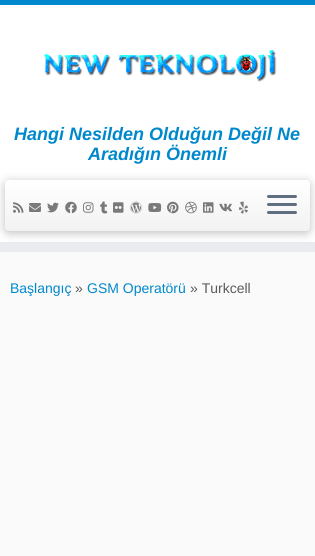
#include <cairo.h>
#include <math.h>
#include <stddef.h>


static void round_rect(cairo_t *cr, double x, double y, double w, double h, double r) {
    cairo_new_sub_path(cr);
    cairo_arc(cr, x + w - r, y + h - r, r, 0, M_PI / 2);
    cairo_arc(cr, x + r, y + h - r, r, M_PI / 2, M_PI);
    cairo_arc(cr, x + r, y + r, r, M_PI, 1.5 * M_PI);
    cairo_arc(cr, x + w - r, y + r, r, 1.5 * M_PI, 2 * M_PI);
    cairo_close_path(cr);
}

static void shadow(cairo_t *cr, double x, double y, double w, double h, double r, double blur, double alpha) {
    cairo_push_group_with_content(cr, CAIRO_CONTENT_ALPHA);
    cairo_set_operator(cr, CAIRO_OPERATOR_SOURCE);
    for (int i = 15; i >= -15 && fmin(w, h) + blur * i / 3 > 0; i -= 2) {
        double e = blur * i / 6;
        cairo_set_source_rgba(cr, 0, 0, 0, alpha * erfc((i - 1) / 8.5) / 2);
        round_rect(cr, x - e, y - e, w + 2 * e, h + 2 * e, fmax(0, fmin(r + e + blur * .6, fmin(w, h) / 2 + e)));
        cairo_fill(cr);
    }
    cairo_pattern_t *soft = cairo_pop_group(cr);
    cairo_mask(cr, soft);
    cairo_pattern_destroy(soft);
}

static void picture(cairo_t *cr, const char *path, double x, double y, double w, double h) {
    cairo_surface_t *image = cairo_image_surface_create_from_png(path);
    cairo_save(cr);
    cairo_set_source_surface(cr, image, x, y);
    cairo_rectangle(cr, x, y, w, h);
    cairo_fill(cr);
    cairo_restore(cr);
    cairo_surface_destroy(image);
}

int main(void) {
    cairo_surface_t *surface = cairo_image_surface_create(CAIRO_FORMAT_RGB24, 315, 556);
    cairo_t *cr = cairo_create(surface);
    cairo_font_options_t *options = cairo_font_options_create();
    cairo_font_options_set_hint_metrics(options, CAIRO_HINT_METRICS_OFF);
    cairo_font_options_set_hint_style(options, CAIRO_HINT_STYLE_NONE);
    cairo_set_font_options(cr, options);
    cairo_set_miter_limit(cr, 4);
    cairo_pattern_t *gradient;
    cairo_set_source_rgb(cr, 0.98, 0.98, 0.98);
    cairo_paint(cr);
    cairo_set_source_rgb(cr, 1, 1, 1);
    cairo_rectangle(cr, 0, 5, 315, 237);
    cairo_fill(cr);
    cairo_set_source_rgb(cr, 0, 0.533, 0.8);
    cairo_rectangle(cr, 0, 0, 315, 5);
    cairo_fill(cr);
    cairo_set_source_rgb(cr, 0.914, 0.918, 0.933);
    cairo_rectangle(cr, 0, 242, 315, 10);
    cairo_fill(cr);
    picture(cr, "img1.png", 44, 50, 233, 32);
    cairo_select_font_face(cr, "Liberation Sans", CAIRO_FONT_SLANT_ITALIC, CAIRO_FONT_WEIGHT_BOLD);
    cairo_set_font_size(cr, 18);
    cairo_set_source_rgb(cr, 0, 0.533, 0.8);
    cairo_move_to(cr, 14, 140);
    cairo_show_text(cr, "Hangi Nesilden Olduğun Değil Ne");
    cairo_move_to(cr, 88, 160);
    cairo_show_text(cr, "Aradığın Önemli");
    cairo_set_source_rgb(cr, 0, 0, 0);
    shadow(cr, 5, 182, 305, 51, 4, 5, 0.25);
    gradient = cairo_pattern_create_linear(158, 180, 158, 231);
    cairo_pattern_add_color_stop_rgba(gradient, 0, 1, 1, 1, 1);
    cairo_pattern_add_color_stop_rgba(gradient, 1, 0.949, 0.949, 0.949, 1);
    cairo_set_source(cr, gradient);
    cairo_pattern_destroy(gradient);
    round_rect(cr, 5, 180, 305, 51, 4);
    cairo_fill(cr);
    picture(cr, "img2.png", 13, 202, 11, 11);
    picture(cr, "img3.png", 29, 203, 12, 9);
    picture(cr, "img4.png", 47, 202, 12, 11);
    picture(cr, "img5.png", 65, 201, 12, 13);
    picture(cr, "img6.png", 83, 202, 11, 11);
    picture(cr, "img7.png", 100, 201, 8, 13);
    picture(cr, "img8.png", 113, 202, 11, 11);
    picture(cr, "img9.png", 130, 201, 12, 13);
    picture(cr, "img10.png", 148, 203, 14, 9);
    picture(cr, "img11.png", 167, 201, 12, 13);
    picture(cr, "img12.png", 185, 201, 12, 13);
    picture(cr, "img13.png", 203, 202, 11, 11);
    picture(cr, "img14.png", 219, 203, 13, 9);
    picture(cr, "img15.png", 239, 201, 9, 13);
    cairo_set_source_rgb(cr, 0.373, 0.435, 0.506);
    round_rect(cr, 267, 195, 30, 3, 1.5);
    cairo_fill(cr);
    round_rect(cr, 267, 203, 30, 3, 1.5);
    cairo_fill(cr);
    round_rect(cr, 267, 211, 30, 3, 1.5);
    cairo_fill(cr);
    cairo_select_font_face(cr, "Liberation Sans", CAIRO_FONT_SLANT_NORMAL, CAIRO_FONT_WEIGHT_NORMAL);
    cairo_set_font_size(cr, 14);
    cairo_set_source_rgb(cr, 0, 0.533, 0.8);
    cairo_move_to(cr, 10, 293);
    cairo_show_text(cr, "Başlangıç");
    cairo_set_source_rgb(cr, 0.353, 0.353, 0.353);
    cairo_move_to(cr, 75, 293);
    cairo_show_text(cr, "»");
    cairo_set_source_rgb(cr, 0, 0.533, 0.8);
    cairo_move_to(cr, 87, 293);
    cairo_show_text(cr, "GSM Operatörü");
    cairo_set_source_rgb(cr, 0.353, 0.353, 0.353);
    cairo_move_to(cr, 190, 293);
    cairo_show_text(cr, "» Turkcell");
    cairo_surface_write_to_png(surface, "page.png");
    cairo_font_options_destroy(options);
    cairo_destroy(cr);
    cairo_surface_destroy(surface);
    return 0;
}
